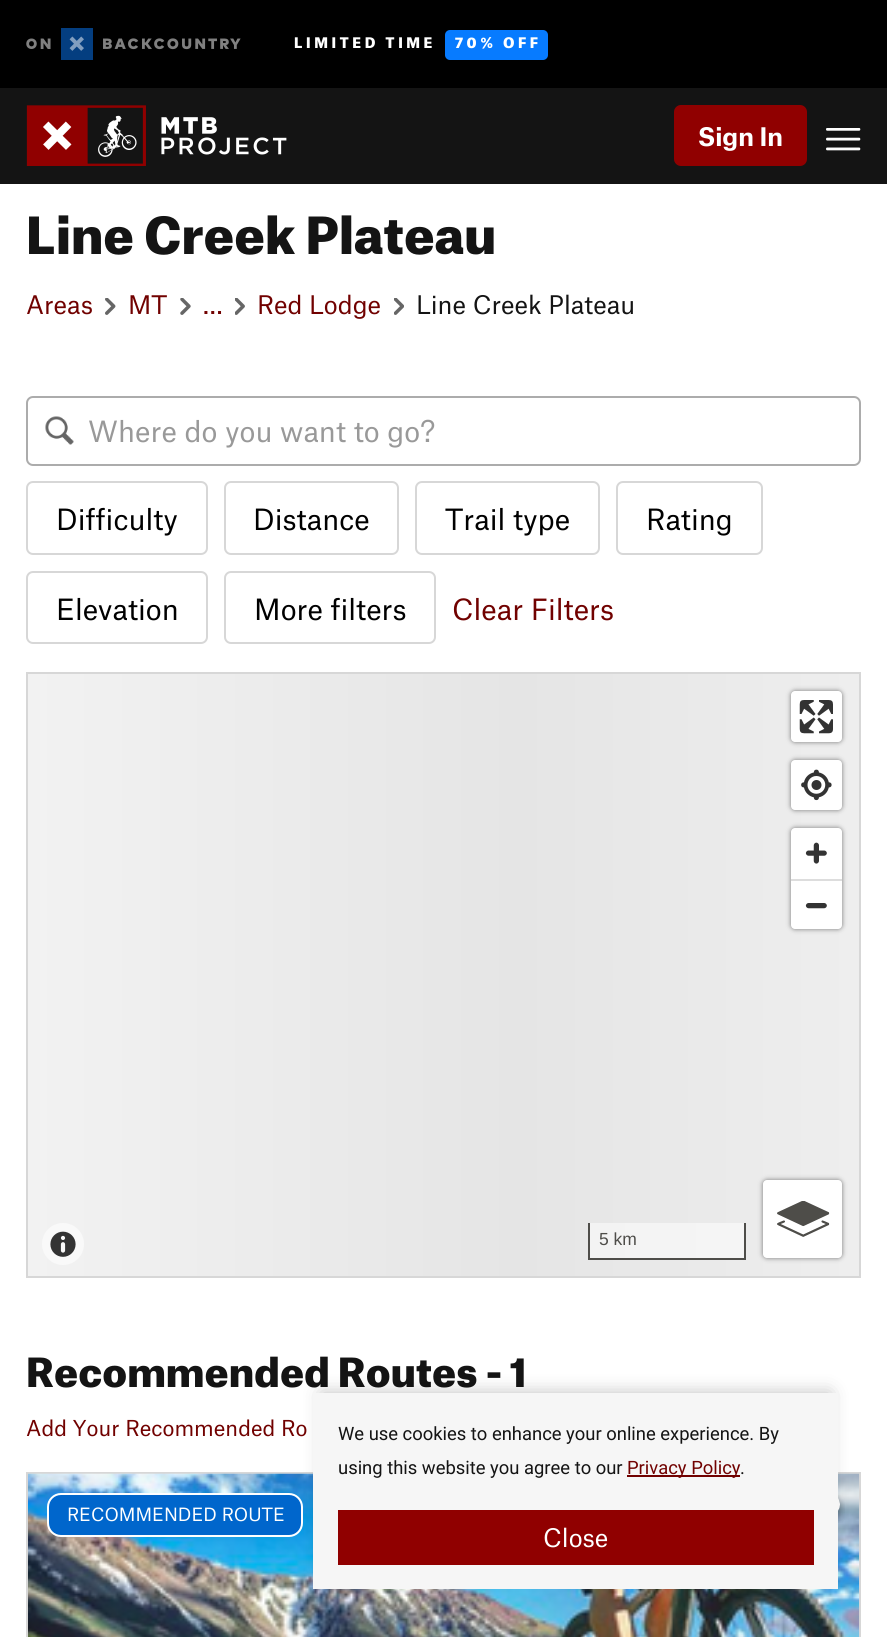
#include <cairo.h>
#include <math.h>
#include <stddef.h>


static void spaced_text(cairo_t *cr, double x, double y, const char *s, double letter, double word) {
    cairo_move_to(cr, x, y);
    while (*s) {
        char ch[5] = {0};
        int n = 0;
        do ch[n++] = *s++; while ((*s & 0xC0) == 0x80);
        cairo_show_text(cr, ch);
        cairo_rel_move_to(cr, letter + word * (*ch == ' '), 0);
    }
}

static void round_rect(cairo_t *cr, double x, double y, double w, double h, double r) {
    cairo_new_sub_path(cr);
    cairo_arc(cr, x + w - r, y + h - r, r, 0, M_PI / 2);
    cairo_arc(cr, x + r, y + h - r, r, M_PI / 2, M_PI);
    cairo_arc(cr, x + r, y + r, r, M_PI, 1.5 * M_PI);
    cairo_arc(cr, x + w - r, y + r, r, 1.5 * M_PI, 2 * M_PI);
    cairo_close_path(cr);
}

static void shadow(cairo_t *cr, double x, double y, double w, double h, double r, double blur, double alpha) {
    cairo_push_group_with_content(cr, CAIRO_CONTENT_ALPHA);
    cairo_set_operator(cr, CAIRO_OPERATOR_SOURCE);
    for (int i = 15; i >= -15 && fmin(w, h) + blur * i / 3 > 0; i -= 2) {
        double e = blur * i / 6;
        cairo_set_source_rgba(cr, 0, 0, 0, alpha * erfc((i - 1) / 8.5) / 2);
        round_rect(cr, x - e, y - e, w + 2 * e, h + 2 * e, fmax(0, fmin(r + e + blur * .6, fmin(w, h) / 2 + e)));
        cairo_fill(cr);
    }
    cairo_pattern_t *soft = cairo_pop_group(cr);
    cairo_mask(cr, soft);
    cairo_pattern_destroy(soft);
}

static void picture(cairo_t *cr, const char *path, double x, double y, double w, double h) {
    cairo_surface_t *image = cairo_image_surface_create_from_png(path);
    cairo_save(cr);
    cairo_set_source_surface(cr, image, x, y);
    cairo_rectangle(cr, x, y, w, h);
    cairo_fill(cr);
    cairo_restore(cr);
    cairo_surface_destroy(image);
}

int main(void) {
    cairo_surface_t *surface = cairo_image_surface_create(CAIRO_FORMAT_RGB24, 887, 1637);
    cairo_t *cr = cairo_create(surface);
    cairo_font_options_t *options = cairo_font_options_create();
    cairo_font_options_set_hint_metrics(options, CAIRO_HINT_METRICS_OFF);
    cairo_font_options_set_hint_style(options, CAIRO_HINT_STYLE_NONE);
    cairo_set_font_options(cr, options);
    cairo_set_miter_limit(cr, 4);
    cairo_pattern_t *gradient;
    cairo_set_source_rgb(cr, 1, 1, 1);
    cairo_paint(cr);
    cairo_set_source_rgb(cr, 0.082, 0.082, 0.082);
    cairo_rectangle(cr, 0, 88, 887, 96);
    cairo_fill(cr);
    cairo_set_source_rgb(cr, 0, 0, 0);
    cairo_rectangle(cr, 0, 0, 887, 88);
    cairo_fill(cr);
    picture(cr, "img1.png", 26, 28, 215, 32);
    cairo_select_font_face(cr, "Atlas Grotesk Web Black", CAIRO_FONT_SLANT_NORMAL, CAIRO_FONT_WEIGHT_NORMAL);
    cairo_set_font_size(cr, 14);
    cairo_set_source_rgb(cr, 1, 1, 1);
    spaced_text(cr, 294, 48, "LIMITED TIME", 3.5, 0);
    cairo_set_source_rgb(cr, 0.031, 0.482, 1);
    round_rect(cr, 445, 30, 103, 30, 5);
    cairo_fill(cr);
    cairo_set_source_rgb(cr, 1, 1, 1);
    spaced_text(cr, 455, 48, "70% OFF", 3.5, 0);
    picture(cr, "img2.png", 26, 105, 261, 61);
    cairo_set_source_rgb(cr, 0.565, 0, 0);
    round_rect(cr, 674, 105, 133, 61, 7);
    cairo_fill(cr);
    cairo_select_font_face(cr, "Atlas Grotesk Web", CAIRO_FONT_SLANT_NORMAL, CAIRO_FONT_WEIGHT_BOLD);
    cairo_set_font_size(cr, 24.5);
    cairo_set_source_rgb(cr, 1, 1, 1);
    cairo_move_to(cr, 698, 146);
    cairo_show_text(cr, "Sign In");
    picture(cr, "img3.png", 826, 128, 35, 23);
    cairo_select_font_face(cr, "Atlas Grotesk Web Black", CAIRO_FONT_SLANT_NORMAL, CAIRO_FONT_WEIGHT_NORMAL);
    cairo_set_font_size(cr, 49);
    cairo_set_source_rgb(cr, 0.082, 0.082, 0.082);
    cairo_move_to(cr, 26, 254);
    cairo_show_text(cr, "Line Creek Plateau");
    cairo_select_font_face(cr, "Atlas Grotesk Web", CAIRO_FONT_SLANT_NORMAL, CAIRO_FONT_WEIGHT_NORMAL);
    cairo_set_font_size(cr, 24.5);
    cairo_set_source_rgb(cr, 0.443, 0.004, 0);
    cairo_move_to(cr, 26, 314);
    cairo_show_text(cr, "Areas");
    picture(cr, "img4.png", 105, 298, 11, 17);
    cairo_move_to(cr, 128, 314);
    cairo_show_text(cr, "MT");
    picture(cr, "img5.png", 180, 298, 11, 17);
    cairo_move_to(cr, 203, 314);
    cairo_show_text(cr, "…");
    picture(cr, "img6.png", 235, 298, 10, 17);
    cairo_move_to(cr, 257, 314);
    cairo_show_text(cr, "Red Lodge");
    picture(cr, "img7.png", 394, 298, 10, 17);
    cairo_set_source_rgb(cr, 0.082, 0.082, 0.082);
    cairo_move_to(cr, 416, 314);
    cairo_show_text(cr, "Line Creek Plateau");
    picture(cr, "img8.png", 45, 416, 29, 29);
    round_rect(cr, 27, 397, 833, 68, 6);
    cairo_set_source_rgb(cr, 0.675, 0.675, 0.675);
    cairo_stroke(cr);
    cairo_set_font_size(cr, 28);
    cairo_set_source_rgb(cr, 0.6, 0.6, 0.6);
    cairo_move_to(cr, 88, 442);
    cairo_show_text(cr, "Where do you want to go?");
    round_rect(cr, 27, 482, 180, 72, 6);
    cairo_set_source_rgb(cr, 0.843, 0.843, 0.843);
    cairo_stroke(cr);
    cairo_set_source_rgb(cr, 0, 0, 0);
    cairo_move_to(cr, 56, 530);
    cairo_show_text(cr, "Difficulty");
    round_rect(cr, 225, 482, 173, 72, 6);
    cairo_set_source_rgb(cr, 0.843, 0.843, 0.843);
    cairo_stroke(cr);
    cairo_set_source_rgb(cr, 0, 0, 0);
    cairo_move_to(cr, 253, 530);
    cairo_show_text(cr, "Distance");
    round_rect(cr, 416, 482, 183, 72, 6);
    cairo_set_source_rgb(cr, 0.843, 0.843, 0.843);
    cairo_stroke(cr);
    cairo_set_source_rgb(cr, 0, 0, 0);
    cairo_move_to(cr, 445, 530);
    cairo_show_text(cr, "Trail type");
    round_rect(cr, 617, 482, 145, 72, 6);
    cairo_set_source_rgb(cr, 0.843, 0.843, 0.843);
    cairo_stroke(cr);
    cairo_set_source_rgb(cr, 0, 0, 0);
    cairo_move_to(cr, 646, 530);
    cairo_show_text(cr, "Rating");
    round_rect(cr, 27, 572, 180, 71, 6);
    cairo_set_source_rgb(cr, 0.843, 0.843, 0.843);
    cairo_stroke(cr);
    cairo_set_source_rgb(cr, 0, 0, 0);
    cairo_move_to(cr, 56, 620);
    cairo_show_text(cr, "Elevation");
    round_rect(cr, 225, 572, 210, 71, 6);
    cairo_set_source_rgb(cr, 0.843, 0.843, 0.843);
    cairo_stroke(cr);
    cairo_set_source_rgb(cr, 0, 0, 0);
    cairo_move_to(cr, 254, 620);
    cairo_show_text(cr, "More filters");
    cairo_set_source_rgb(cr, 0.443, 0.004, 0);
    cairo_move_to(cr, 452, 620);
    cairo_show_text(cr, "Clear Filters");
    gradient = cairo_pattern_create_linear(28, 975, 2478, 975);
    cairo_pattern_add_color_stop_rgba(gradient, 0, 0.949, 0.949, 0.949, 1);
    cairo_pattern_add_color_stop_rgba(gradient, 0.2, 0.898, 0.898, 0.898, 1);
    cairo_pattern_add_color_stop_rgba(gradient, 0.4, 0.949, 0.949, 0.949, 1);
    cairo_pattern_add_color_stop_rgba(gradient, 1, 0.949, 0.949, 0.949, 1);
    cairo_set_source(cr, gradient);
    cairo_pattern_destroy(gradient);
    cairo_rectangle(cr, 28, 674, 831, 602);
    cairo_fill(cr);
    gradient = cairo_pattern_create_linear(28, 975, 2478, 975);
    cairo_pattern_add_color_stop_rgba(gradient, 0, 0.976, 0.976, 0.976, 1);
    cairo_pattern_add_color_stop_rgba(gradient, 0.2, 0.949, 0.949, 0.949, 1);
    cairo_pattern_add_color_stop_rgba(gradient, 0.4, 0.976, 0.976, 0.976, 1);
    cairo_pattern_add_color_stop_rgba(gradient, 1, 0.976, 0.976, 0.976, 1);
    cairo_set_source(cr, gradient);
    cairo_pattern_destroy(gradient);
    cairo_rectangle(cr, 590, 1223, 154, 35);
    cairo_fill(cr);
    cairo_rectangle(cr, 27, 673, 833, 604);
    cairo_set_source_rgb(cr, 0.843, 0.843, 0.843);
    cairo_stroke(cr);
    cairo_set_source_rgb(cr, 0.973, 0.973, 0.973);
    cairo_arc(cr, 63, 1244, 21, 0, 2 * M_PI);
    cairo_fill(cr);
    picture(cr, "img9.png", 50, 1231, 26, 26);
    cairo_set_source_rgb(cr, 0, 0, 0);
    shadow(cr, 791, 691, 51, 51, 4, 2.5, 0.5);
    cairo_set_source_rgb(cr, 1, 1, 1);
    round_rect(cr, 791, 691, 51, 51, 4);
    cairo_fill(cr);
    picture(cr, "img10.png", 799, 700, 34, 34);
    cairo_set_source_rgb(cr, 0, 0, 0);
    shadow(cr, 791, 760, 51, 50, 4, 2.5, 0.5);
    cairo_set_source_rgb(cr, 1, 1, 1);
    round_rect(cr, 791, 760, 51, 50, 4);
    cairo_fill(cr);
    picture(cr, "img11.png", 801, 769, 31, 32);
    cairo_set_source_rgb(cr, 0, 0, 0);
    shadow(cr, 791, 828, 51, 101, 4, 2.5, 0.5);
    cairo_set_source_rgb(cr, 1, 1, 1);
    round_rect(cr, 791, 828, 51, 101, 4);
    cairo_fill(cr);
    picture(cr, "img12.png", 805, 842, 22, 22);
    cairo_set_source_rgb(cr, 0.867, 0.867, 0.867);
    cairo_rectangle(cr, 791, 879, 51, 2);
    cairo_fill(cr);
    picture(cr, "img13.png", 805, 903, 22, 6);
    cairo_set_source_rgb(cr, 0.306, 0.302, 0.286);
    cairo_rectangle(cr, 744, 1223, 2, 37);
    cairo_fill(cr);
    cairo_rectangle(cr, 588, 1258, 158, 2);
    cairo_fill(cr);
    cairo_rectangle(cr, 588, 1223, 2, 37);
    cairo_fill(cr);
    cairo_select_font_face(cr, "Liberation Sans", CAIRO_FONT_SLANT_NORMAL, CAIRO_FONT_WEIGHT_NORMAL);
    cairo_set_font_size(cr, 17.5);
    cairo_move_to(cr, 599, 1245);
    cairo_show_text(cr, "5 km");
    cairo_set_source_rgb(cr, 0, 0, 0);
    shadow(cr, 763, 1180, 79, 78, 4, 2.5, 0.5);
    cairo_set_source_rgb(cr, 1, 1, 1);
    round_rect(cr, 763, 1180, 79, 78, 4);
    cairo_fill(cr);
    picture(cr, "img14.png", 777, 1201, 53, 36);
    cairo_select_font_face(cr, "Atlas Grotesk Web Black", CAIRO_FONT_SLANT_NORMAL, CAIRO_FONT_WEIGHT_NORMAL);
    cairo_set_font_size(cr, 38.5);
    cairo_set_source_rgb(cr, 0.082, 0.082, 0.082);
    cairo_move_to(cr, 26, 1387);
    cairo_show_text(cr, "Recommended Routes - 1");
    cairo_select_font_face(cr, "Atlas Grotesk Web", CAIRO_FONT_SLANT_NORMAL, CAIRO_FONT_WEIGHT_NORMAL);
    cairo_set_font_size(cr, 21);
    cairo_set_source_rgb(cr, 0.443, 0.004, 0);
    cairo_move_to(cr, 26, 1436);
    cairo_show_text(cr, "Add Your Recommended Ro");
    cairo_rectangle(cr, 27, 1473, 833, 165);
    cairo_set_source_rgb(cr, 0.843, 0.843, 0.843);
    cairo_stroke(cr);
    picture(cr, "img15.png", 28, 1473, 832, 164);
    cairo_set_source_rgb(cr, 0, 0.4, 0.8);
    round_rect(cr, 48, 1494, 254, 42, 13);
    cairo_fill_preserve(cr);
    cairo_set_source_rgb(cr, 1, 1, 1);
    cairo_stroke(cr);
    cairo_set_font_size(cr, 17.5);
    cairo_move_to(cr, 67, 1521);
    cairo_show_text(cr, "RECOMMENDED ROUTE");
    picture(cr, "img16.png", 838, 1495, 7, 28);
    cairo_set_source_rgb(cr, 0, 0, 0);
    shadow(cr, 322, 1393, 508, 179, 0, 9, 0.25);
    cairo_set_source_rgb(cr, 0.961, 0.961, 0.961);
    cairo_rectangle(cr, 313, 1393, 525, 196);
    cairo_fill(cr);
    cairo_select_font_face(cr, "Roboto", CAIRO_FONT_SLANT_NORMAL, CAIRO_FONT_WEIGHT_NORMAL);
    cairo_set_font_size(cr, 18.4);
    cairo_set_source_rgb(cr, 0.082, 0.082, 0.082);
    cairo_move_to(cr, 338, 1440);
    cairo_show_text(cr, "We use cookies to enhance your online experience. By");
    cairo_move_to(cr, 338, 1474);
    cairo_show_text(cr, "using this website you agree to our");
    cairo_set_source_rgb(cr, 0.443, 0.004, 0);
    cairo_rectangle(cr, 627, 1475, 113, 2);
    cairo_fill(cr);
    cairo_move_to(cr, 627, 1474);
    cairo_show_text(cr, "Privacy Policy");
    cairo_set_source_rgb(cr, 0.082, 0.082, 0.082);
    cairo_move_to(cr, 740, 1474);
    cairo_show_text(cr, ".");
    cairo_set_source_rgb(cr, 0.565, 0, 0);
    cairo_rectangle(cr, 338, 1510, 476, 55);
    cairo_fill(cr);
    cairo_select_font_face(cr, "Atlas Grotesk Web", CAIRO_FONT_SLANT_NORMAL, CAIRO_FONT_WEIGHT_NORMAL);
    cairo_set_font_size(cr, 24.5);
    cairo_set_source_rgb(cr, 1, 1, 1);
    cairo_move_to(cr, 543, 1547);
    cairo_show_text(cr, "Close");
    cairo_surface_write_to_png(surface, "page.png");
    cairo_font_options_destroy(options);
    cairo_destroy(cr);
    cairo_surface_destroy(surface);
    return 0;
}
